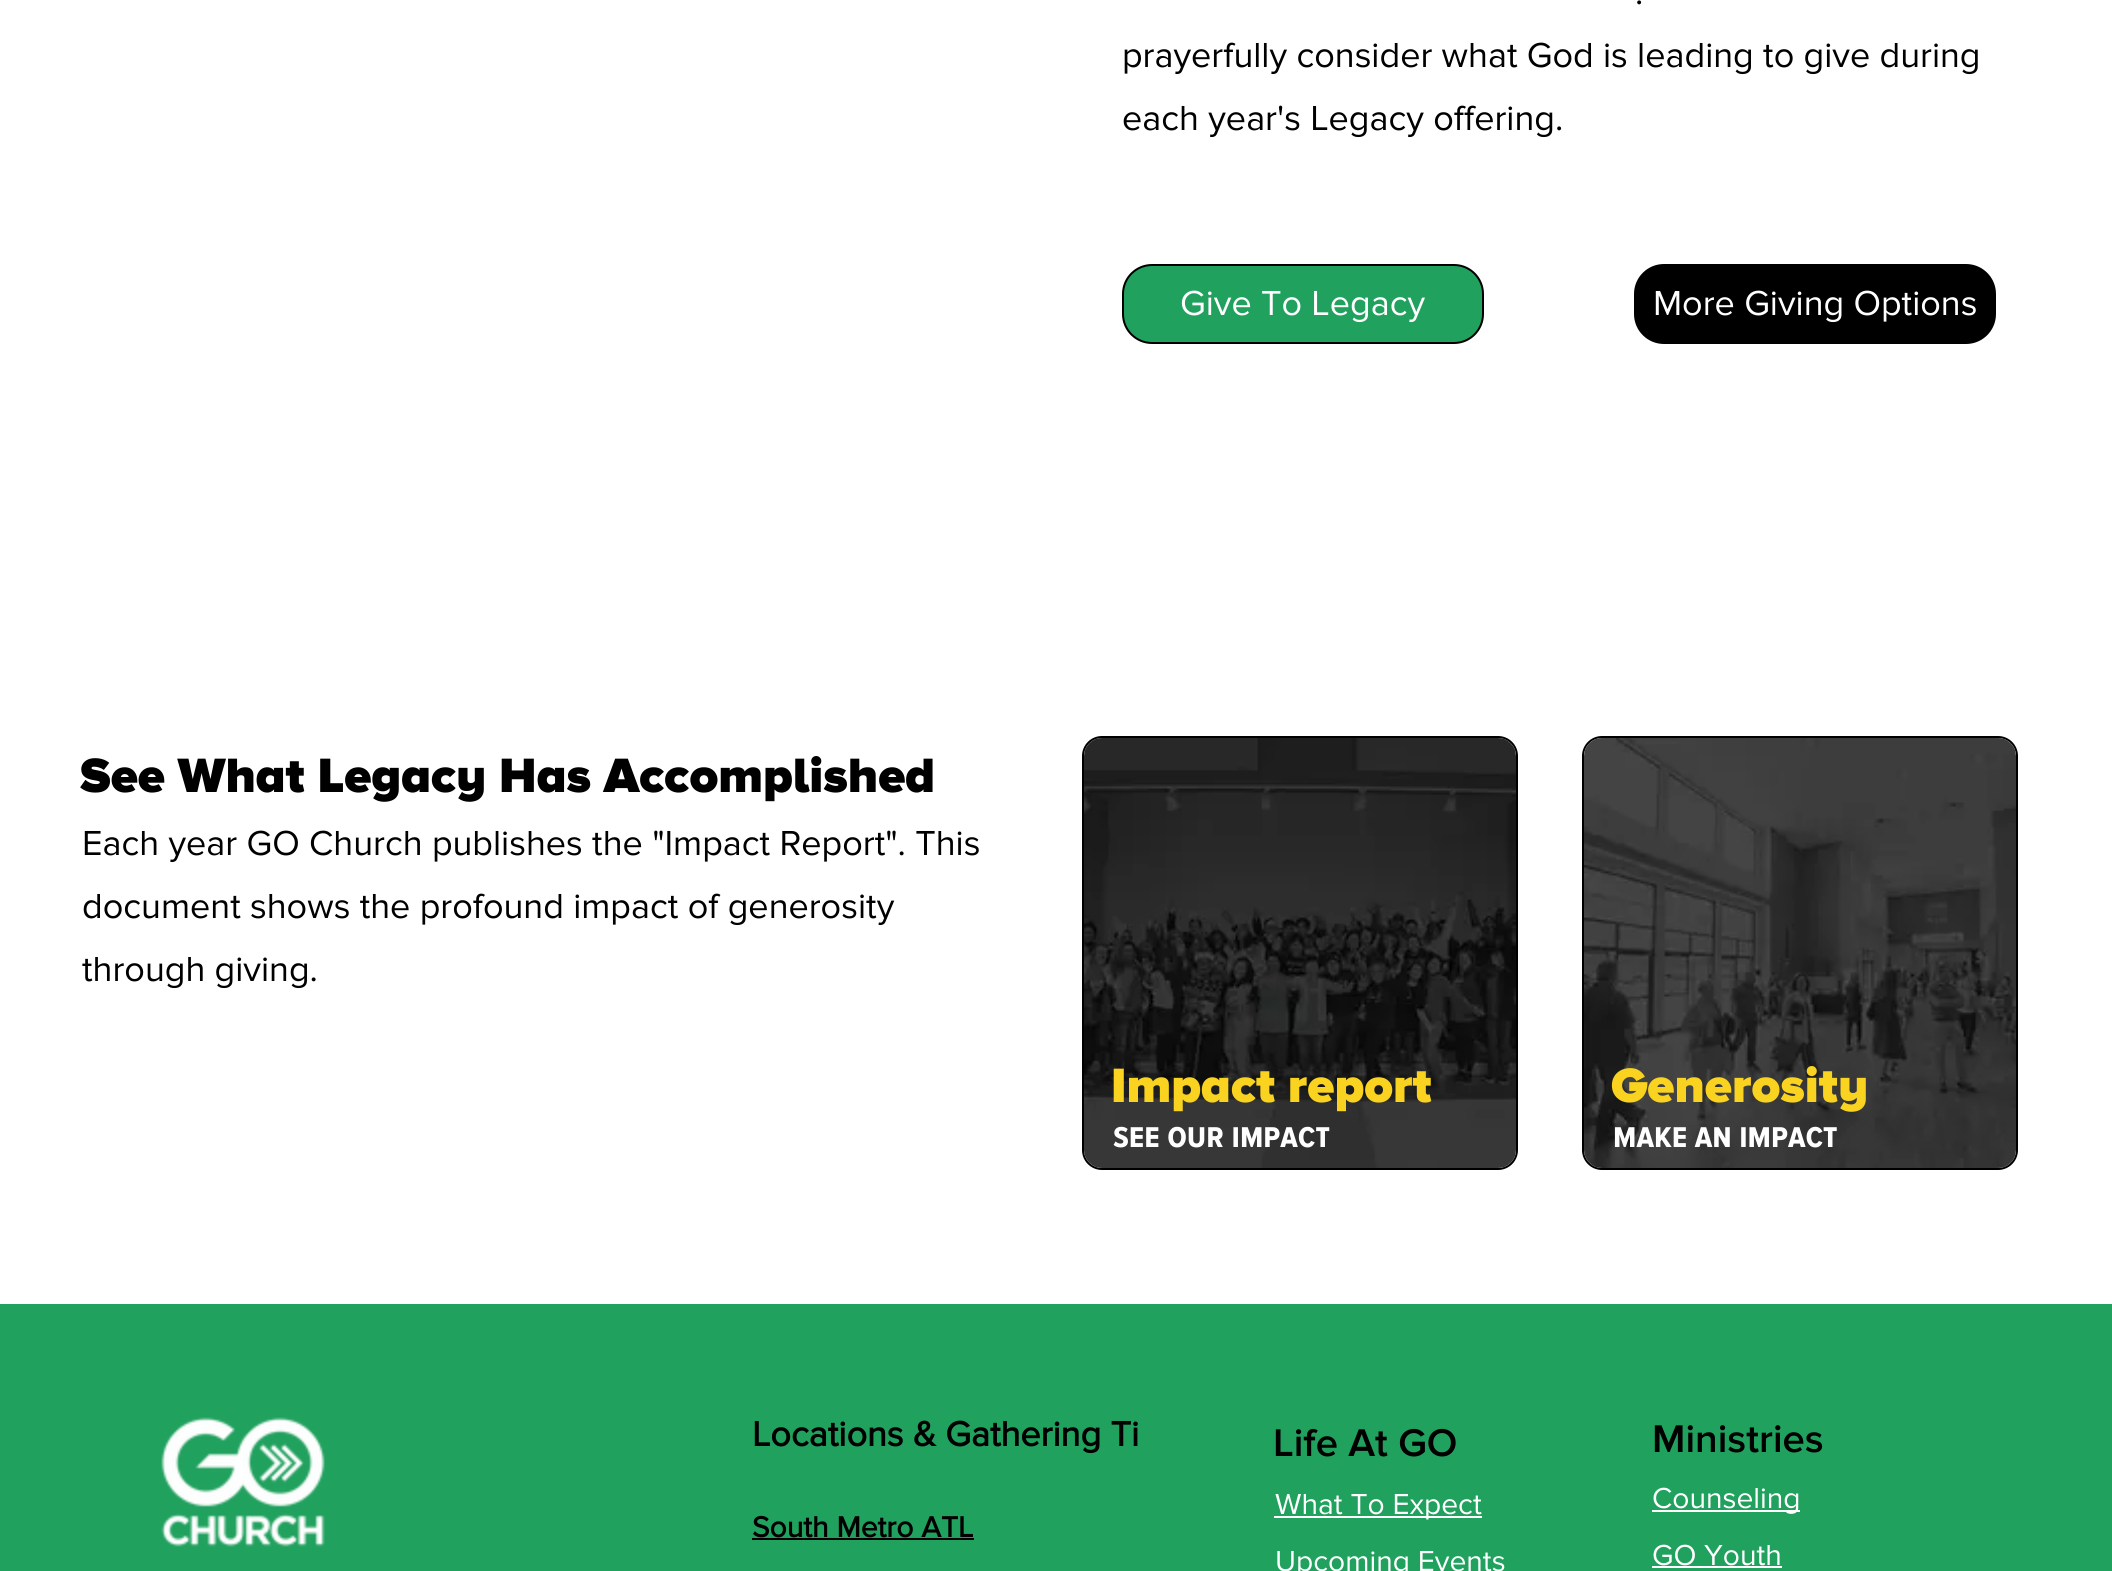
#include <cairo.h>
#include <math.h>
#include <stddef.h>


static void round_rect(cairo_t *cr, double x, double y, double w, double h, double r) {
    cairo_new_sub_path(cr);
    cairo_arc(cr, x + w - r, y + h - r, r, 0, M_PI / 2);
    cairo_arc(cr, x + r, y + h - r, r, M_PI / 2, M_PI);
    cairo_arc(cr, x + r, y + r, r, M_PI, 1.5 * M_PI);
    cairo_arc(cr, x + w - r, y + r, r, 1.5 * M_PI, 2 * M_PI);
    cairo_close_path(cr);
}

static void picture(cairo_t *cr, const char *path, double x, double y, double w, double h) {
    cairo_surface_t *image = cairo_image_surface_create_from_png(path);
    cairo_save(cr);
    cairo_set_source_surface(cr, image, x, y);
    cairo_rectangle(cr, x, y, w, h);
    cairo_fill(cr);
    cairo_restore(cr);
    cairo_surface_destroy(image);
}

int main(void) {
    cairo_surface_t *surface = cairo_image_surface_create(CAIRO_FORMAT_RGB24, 2112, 1571);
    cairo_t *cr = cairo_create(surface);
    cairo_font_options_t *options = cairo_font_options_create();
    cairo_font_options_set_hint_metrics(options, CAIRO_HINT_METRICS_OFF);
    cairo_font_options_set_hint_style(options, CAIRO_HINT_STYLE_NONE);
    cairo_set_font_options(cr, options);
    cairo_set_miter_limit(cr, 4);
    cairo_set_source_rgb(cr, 1, 1, 1);
    cairo_paint(cr);
    cairo_select_font_face(cr, "Proxima Nova", CAIRO_FONT_SLANT_NORMAL, CAIRO_FONT_WEIGHT_NORMAL);
    cairo_set_font_size(cr, 36);
    cairo_set_source_rgb(cr, 0, 0, 0);
    cairo_move_to(cr, 1635, 4);
    cairo_show_text(cr, ".");
    cairo_move_to(cr, 1122, 67);
    cairo_show_text(cr, "prayerfully consider what God is leading to give during");
    cairo_move_to(cr, 1122, 130);
    cairo_show_text(cr, "each year's Legacy offering.");
    cairo_set_source_rgb(cr, 0.129, 0.631, 0.369);
    round_rect(cr, 1123, 265, 360, 78, 29);
    cairo_fill_preserve(cr);
    cairo_set_source_rgb(cr, 0, 0, 0);
    cairo_stroke(cr);
    cairo_set_source_rgb(cr, 1, 1, 1);
    cairo_move_to(cr, 1180, 315);
    cairo_show_text(cr, "Give To Legacy");
    cairo_set_source_rgb(cr, 0, 0, 0);
    round_rect(cr, 1634, 264, 362, 80, 30);
    cairo_fill(cr);
    cairo_set_source_rgb(cr, 1, 1, 1);
    cairo_move_to(cr, 1653, 315);
    cairo_show_text(cr, "More Giving Options");
    cairo_select_font_face(cr, "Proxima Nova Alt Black", CAIRO_FONT_SLANT_NORMAL, CAIRO_FONT_WEIGHT_NORMAL);
    cairo_set_font_size(cr, 50);
    cairo_set_source_rgb(cr, 0, 0, 0);
    cairo_move_to(cr, 80, 792);
    cairo_show_text(cr, "See What Legacy Has Accomplished");
    cairo_select_font_face(cr, "Proxima Nova", CAIRO_FONT_SLANT_NORMAL, CAIRO_FONT_WEIGHT_NORMAL);
    cairo_set_font_size(cr, 36);
    cairo_move_to(cr, 82, 855);
    cairo_show_text(cr, "Each year GO Church publishes the \"Impact Report\". This");
    cairo_move_to(cr, 82, 918);
    cairo_show_text(cr, "document shows the profound impact of generosity");
    cairo_move_to(cr, 82, 981);
    cairo_show_text(cr, "through giving.");
    round_rect(cr, 1083, 737, 434, 432, 19);
    cairo_stroke(cr);
    picture(cr, "img1.png", 1084, 738, 432, 430);
    cairo_select_font_face(cr, "Proxima Nova Alt Black", CAIRO_FONT_SLANT_NORMAL, CAIRO_FONT_WEIGHT_NORMAL);
    cairo_set_font_size(cr, 50);
    cairo_set_source_rgb(cr, 0.976, 0.827, 0.125);
    cairo_move_to(cr, 1111, 1102);
    cairo_show_text(cr, "Impact report");
    cairo_select_font_face(cr, "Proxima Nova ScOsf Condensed", CAIRO_FONT_SLANT_NORMAL, CAIRO_FONT_WEIGHT_BOLD);
    cairo_set_font_size(cr, 36);
    cairo_set_source_rgb(cr, 1, 1, 1);
    cairo_move_to(cr, 1113, 1147);
    cairo_show_text(cr, "see our impact");
    round_rect(cr, 1583, 737, 434, 432, 19);
    cairo_set_source_rgb(cr, 0, 0, 0);
    cairo_stroke(cr);
    picture(cr, "img2.png", 1584, 738, 432, 430);
    cairo_select_font_face(cr, "Proxima Nova Alt Black", CAIRO_FONT_SLANT_NORMAL, CAIRO_FONT_WEIGHT_NORMAL);
    cairo_set_font_size(cr, 50);
    cairo_set_source_rgb(cr, 0.976, 0.827, 0.125);
    cairo_move_to(cr, 1611, 1102);
    cairo_show_text(cr, "Generosity");
    cairo_select_font_face(cr, "Proxima Nova ScOsf Condensed", CAIRO_FONT_SLANT_NORMAL, CAIRO_FONT_WEIGHT_BOLD);
    cairo_set_font_size(cr, 36);
    cairo_set_source_rgb(cr, 1, 1, 1);
    cairo_move_to(cr, 1613, 1147);
    cairo_show_text(cr, "make an impact");
    cairo_set_source_rgb(cr, 0.129, 0.631, 0.369);
    cairo_rectangle(cr, 0, 1304, 2112, 267);
    cairo_fill(cr);
    picture(cr, "img3.png", 161, 1417, 164, 130);
    cairo_select_font_face(cr, "Proxima Nova", CAIRO_FONT_SLANT_NORMAL, CAIRO_FONT_WEIGHT_BOLD);
    cairo_set_source_rgb(cr, 0, 0, 0);
    cairo_move_to(cr, 752, 1446);
    cairo_show_text(cr, "Locations & Gathering Ti");
    cairo_set_font_size(cr, 30);
    cairo_move_to(cr, 752, 1537);
    cairo_show_text(cr, "South Metro ATL");
    cairo_rectangle(cr, 752, 1538, 222, 2);
    cairo_fill(cr);
    cairo_select_font_face(cr, "Proxima Nova SemiBold", CAIRO_FONT_SLANT_NORMAL, CAIRO_FONT_WEIGHT_NORMAL);
    cairo_set_font_size(cr, 40);
    cairo_move_to(cr, 1273, 1456);
    cairo_show_text(cr, "Life At GO");
    cairo_set_source_rgb(cr, 1, 1, 1);
    cairo_rectangle(cr, 1274, 1516, 208, 2);
    cairo_fill(cr);
    cairo_select_font_face(cr, "Proxima Nova", CAIRO_FONT_SLANT_NORMAL, CAIRO_FONT_WEIGHT_NORMAL);
    cairo_set_font_size(cr, 30);
    cairo_move_to(cr, 1275, 1514);
    cairo_show_text(cr, "What To Expect");
    cairo_move_to(cr, 1275, 1571);
    cairo_show_text(cr, "Upcoming Events");
    cairo_select_font_face(cr, "Proxima Nova SemiBold", CAIRO_FONT_SLANT_NORMAL, CAIRO_FONT_WEIGHT_NORMAL);
    cairo_set_font_size(cr, 40);
    cairo_set_source_rgb(cr, 0, 0, 0);
    cairo_move_to(cr, 1652, 1452);
    cairo_show_text(cr, "Ministries");
    cairo_set_source_rgb(cr, 1, 1, 1);
    cairo_rectangle(cr, 1652, 1510, 148, 2);
    cairo_fill(cr);
    cairo_select_font_face(cr, "Proxima Nova", CAIRO_FONT_SLANT_NORMAL, CAIRO_FONT_WEIGHT_NORMAL);
    cairo_set_font_size(cr, 30);
    cairo_move_to(cr, 1652, 1508);
    cairo_show_text(cr, "Counseling");
    cairo_move_to(cr, 1652, 1565);
    cairo_show_text(cr, "GO Youth");
    cairo_rectangle(cr, 1652, 1566, 130, 2);
    cairo_fill(cr);
    cairo_surface_write_to_png(surface, "page.png");
    cairo_font_options_destroy(options);
    cairo_destroy(cr);
    cairo_surface_destroy(surface);
    return 0;
}
